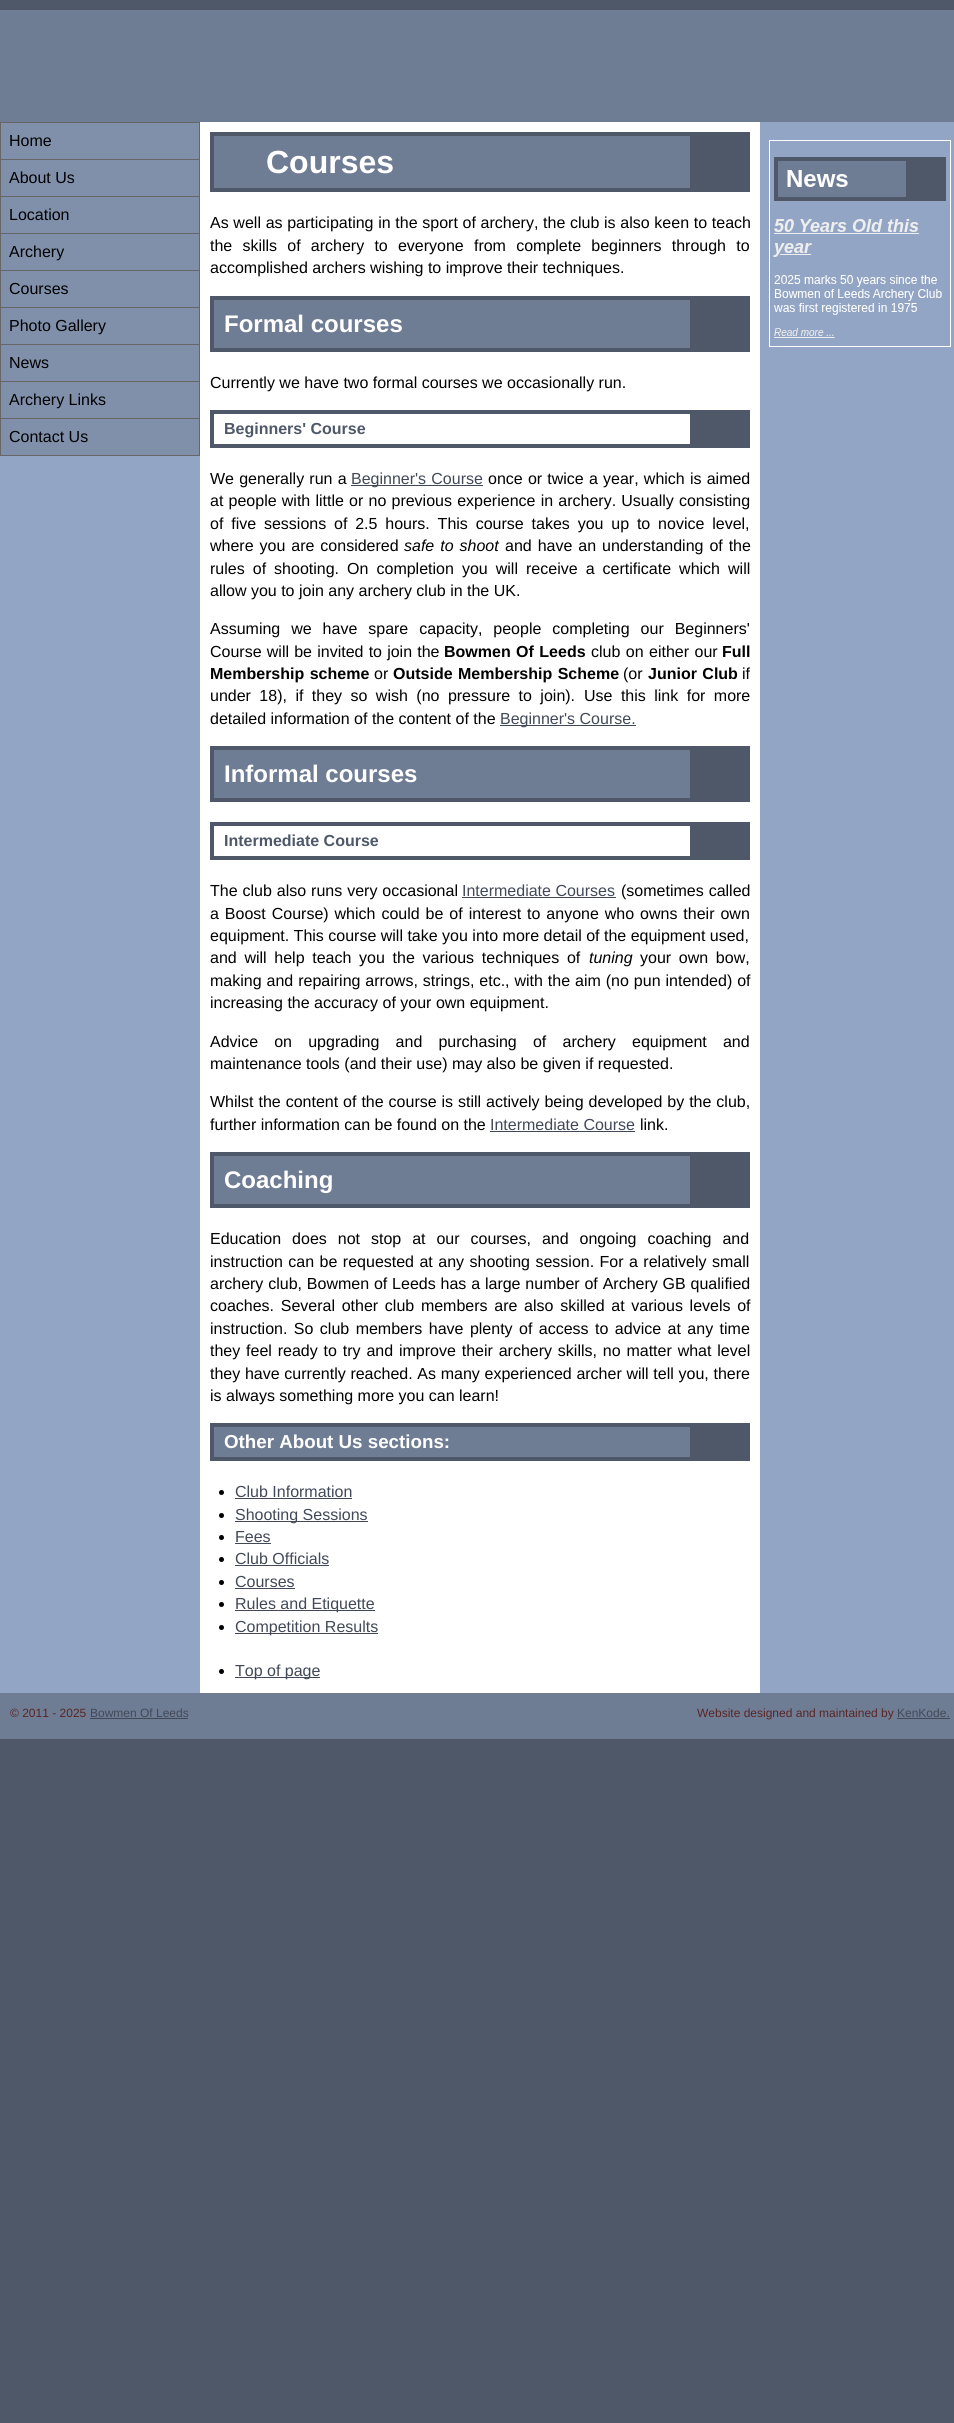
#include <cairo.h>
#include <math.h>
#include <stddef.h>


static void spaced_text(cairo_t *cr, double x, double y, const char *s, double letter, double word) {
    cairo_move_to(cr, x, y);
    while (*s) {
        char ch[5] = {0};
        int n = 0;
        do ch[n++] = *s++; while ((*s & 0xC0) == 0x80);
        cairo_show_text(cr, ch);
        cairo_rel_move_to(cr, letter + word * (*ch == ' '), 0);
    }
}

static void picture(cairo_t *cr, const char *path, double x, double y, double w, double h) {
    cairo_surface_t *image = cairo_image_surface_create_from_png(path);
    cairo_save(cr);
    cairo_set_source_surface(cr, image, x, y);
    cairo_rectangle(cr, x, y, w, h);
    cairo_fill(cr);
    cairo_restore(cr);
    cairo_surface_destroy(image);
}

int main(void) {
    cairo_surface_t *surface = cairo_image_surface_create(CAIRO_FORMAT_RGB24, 954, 2423);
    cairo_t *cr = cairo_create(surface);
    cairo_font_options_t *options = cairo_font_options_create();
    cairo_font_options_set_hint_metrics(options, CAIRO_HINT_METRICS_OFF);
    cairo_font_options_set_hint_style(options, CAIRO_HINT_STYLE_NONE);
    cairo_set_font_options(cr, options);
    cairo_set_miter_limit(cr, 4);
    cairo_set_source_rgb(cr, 0.306, 0.345, 0.412);
    cairo_paint(cr);
    cairo_set_source_rgb(cr, 0.576, 0.647, 0.769);
    cairo_rectangle(cr, 0, 122, 954, 1571);
    cairo_fill(cr);
    cairo_set_source_rgb(cr, 0.435, 0.49, 0.58);
    cairo_rectangle(cr, 0, 10, 954, 112);
    cairo_fill(cr);
    cairo_set_source_rgb(cr, 0.502, 0.565, 0.671);
    cairo_rectangle(cr, 1, 123, 198, 36);
    cairo_fill(cr);
    cairo_set_source_rgb(cr, 0.4, 0.4, 0.4);
    cairo_rectangle(cr, 0, 122, 200, 1);
    cairo_fill(cr);
    cairo_rectangle(cr, 199, 122, 1, 37);
    cairo_fill(cr);
    cairo_rectangle(cr, 0, 122, 1, 37);
    cairo_fill(cr);
    cairo_select_font_face(cr, "Liberation Sans", CAIRO_FONT_SLANT_NORMAL, CAIRO_FONT_WEIGHT_NORMAL);
    cairo_set_font_size(cr, 16);
    cairo_set_source_rgb(cr, 0, 0, 0);
    cairo_move_to(cr, 9, 146);
    cairo_show_text(cr, "Home");
    cairo_set_source_rgb(cr, 0.502, 0.565, 0.671);
    cairo_rectangle(cr, 1, 160, 198, 36);
    cairo_fill(cr);
    cairo_set_source_rgb(cr, 0.4, 0.4, 0.4);
    cairo_rectangle(cr, 0, 159, 200, 1);
    cairo_fill(cr);
    cairo_rectangle(cr, 199, 159, 1, 37);
    cairo_fill(cr);
    cairo_rectangle(cr, 0, 159, 1, 37);
    cairo_fill(cr);
    cairo_set_source_rgb(cr, 0, 0, 0);
    cairo_move_to(cr, 9, 183);
    cairo_show_text(cr, "About Us");
    cairo_set_source_rgb(cr, 0.502, 0.565, 0.671);
    cairo_rectangle(cr, 1, 197, 198, 36);
    cairo_fill(cr);
    cairo_set_source_rgb(cr, 0.4, 0.4, 0.4);
    cairo_rectangle(cr, 0, 196, 200, 1);
    cairo_fill(cr);
    cairo_rectangle(cr, 199, 196, 1, 37);
    cairo_fill(cr);
    cairo_rectangle(cr, 0, 196, 1, 37);
    cairo_fill(cr);
    cairo_set_source_rgb(cr, 0, 0, 0);
    cairo_move_to(cr, 9, 220);
    cairo_show_text(cr, "Location");
    cairo_set_source_rgb(cr, 0.502, 0.565, 0.671);
    cairo_rectangle(cr, 1, 234, 198, 36);
    cairo_fill(cr);
    cairo_set_source_rgb(cr, 0.4, 0.4, 0.4);
    cairo_rectangle(cr, 0, 233, 200, 1);
    cairo_fill(cr);
    cairo_rectangle(cr, 199, 233, 1, 37);
    cairo_fill(cr);
    cairo_rectangle(cr, 0, 233, 1, 37);
    cairo_fill(cr);
    cairo_set_source_rgb(cr, 0, 0, 0);
    cairo_move_to(cr, 9, 257);
    cairo_show_text(cr, "Archery");
    cairo_set_source_rgb(cr, 0.502, 0.565, 0.671);
    cairo_rectangle(cr, 1, 271, 198, 36);
    cairo_fill(cr);
    cairo_set_source_rgb(cr, 0.4, 0.4, 0.4);
    cairo_rectangle(cr, 0, 270, 200, 1);
    cairo_fill(cr);
    cairo_rectangle(cr, 199, 270, 1, 37);
    cairo_fill(cr);
    cairo_rectangle(cr, 0, 270, 1, 37);
    cairo_fill(cr);
    cairo_set_source_rgb(cr, 0, 0, 0);
    cairo_move_to(cr, 9, 294);
    cairo_show_text(cr, "Courses");
    cairo_set_source_rgb(cr, 0.502, 0.565, 0.671);
    cairo_rectangle(cr, 1, 308, 198, 36);
    cairo_fill(cr);
    cairo_set_source_rgb(cr, 0.4, 0.4, 0.4);
    cairo_rectangle(cr, 0, 307, 200, 1);
    cairo_fill(cr);
    cairo_rectangle(cr, 199, 307, 1, 37);
    cairo_fill(cr);
    cairo_rectangle(cr, 0, 307, 1, 37);
    cairo_fill(cr);
    cairo_set_source_rgb(cr, 0, 0, 0);
    cairo_move_to(cr, 9, 331);
    cairo_show_text(cr, "Photo Gallery");
    cairo_set_source_rgb(cr, 0.502, 0.565, 0.671);
    cairo_rectangle(cr, 1, 345, 198, 36);
    cairo_fill(cr);
    cairo_set_source_rgb(cr, 0.4, 0.4, 0.4);
    cairo_rectangle(cr, 0, 344, 200, 1);
    cairo_fill(cr);
    cairo_rectangle(cr, 199, 344, 1, 37);
    cairo_fill(cr);
    cairo_rectangle(cr, 0, 344, 1, 37);
    cairo_fill(cr);
    cairo_set_source_rgb(cr, 0, 0, 0);
    cairo_move_to(cr, 9, 368);
    cairo_show_text(cr, "News");
    cairo_set_source_rgb(cr, 0.502, 0.565, 0.671);
    cairo_rectangle(cr, 1, 382, 198, 36);
    cairo_fill(cr);
    cairo_set_source_rgb(cr, 0.4, 0.4, 0.4);
    cairo_rectangle(cr, 0, 381, 200, 1);
    cairo_fill(cr);
    cairo_rectangle(cr, 199, 381, 1, 37);
    cairo_fill(cr);
    cairo_rectangle(cr, 0, 381, 1, 37);
    cairo_fill(cr);
    cairo_set_source_rgb(cr, 0, 0, 0);
    cairo_move_to(cr, 9, 405);
    cairo_show_text(cr, "Archery Links");
    cairo_set_source_rgb(cr, 0.502, 0.565, 0.671);
    cairo_rectangle(cr, 0.5, 418.5, 199, 37);
    cairo_fill_preserve(cr);
    cairo_set_source_rgb(cr, 0.4, 0.4, 0.4);
    cairo_set_line_width(cr, 1);
    cairo_stroke(cr);
    cairo_set_source_rgb(cr, 0, 0, 0);
    cairo_move_to(cr, 9, 442);
    cairo_show_text(cr, "Contact Us");
    cairo_set_source_rgb(cr, 1, 1, 1);
    cairo_rectangle(cr, 200, 122, 560, 1571);
    cairo_fill(cr);
    cairo_set_source_rgb(cr, 0.435, 0.49, 0.58);
    cairo_rectangle(cr, 214, 136, 476, 52);
    cairo_fill(cr);
    cairo_set_source_rgb(cr, 0.306, 0.345, 0.412);
    cairo_rectangle(cr, 210, 132, 480, 4);
    cairo_fill(cr);
    cairo_rectangle(cr, 690, 132, 60, 56);
    cairo_fill(cr);
    cairo_rectangle(cr, 210, 188, 540, 4);
    cairo_fill(cr);
    cairo_rectangle(cr, 210, 132, 4, 60);
    cairo_fill(cr);
    cairo_select_font_face(cr, "Liberation Sans", CAIRO_FONT_SLANT_NORMAL, CAIRO_FONT_WEIGHT_BOLD);
    cairo_set_font_size(cr, 32);
    cairo_set_source_rgb(cr, 1, 1, 1);
    cairo_move_to(cr, 266, 173);
    cairo_show_text(cr, "Courses");
    cairo_select_font_face(cr, "Liberation Sans", CAIRO_FONT_SLANT_NORMAL, CAIRO_FONT_WEIGHT_NORMAL);
    cairo_set_font_size(cr, 16);
    cairo_set_source_rgb(cr, 0, 0, 0);
    spaced_text(cr, 210, 228, "As well as participating in the sport of archery, the club is also keen to teach", 0, 0.25);
    spaced_text(cr, 210, 251, "the skills of archery to everyone from complete beginners through to", 0, 5.75);
    cairo_move_to(cr, 210, 273);
    cairo_show_text(cr, "accomplished archers wishing to improve their techniques.");
    cairo_set_source_rgb(cr, 0.435, 0.49, 0.58);
    cairo_rectangle(cr, 214, 300, 476, 48);
    cairo_fill(cr);
    cairo_set_source_rgb(cr, 0.306, 0.345, 0.412);
    cairo_rectangle(cr, 210, 296, 480, 4);
    cairo_fill(cr);
    cairo_rectangle(cr, 690, 296, 60, 52);
    cairo_fill(cr);
    cairo_rectangle(cr, 210, 348, 540, 4);
    cairo_fill(cr);
    cairo_rectangle(cr, 210, 296, 4, 56);
    cairo_fill(cr);
    cairo_select_font_face(cr, "Liberation Sans", CAIRO_FONT_SLANT_NORMAL, CAIRO_FONT_WEIGHT_BOLD);
    cairo_set_font_size(cr, 24);
    cairo_set_source_rgb(cr, 1, 1, 1);
    cairo_move_to(cr, 224, 332);
    cairo_show_text(cr, "Formal courses");
    cairo_select_font_face(cr, "Liberation Sans", CAIRO_FONT_SLANT_NORMAL, CAIRO_FONT_WEIGHT_NORMAL);
    cairo_set_font_size(cr, 16);
    cairo_set_source_rgb(cr, 0, 0, 0);
    cairo_move_to(cr, 210, 388);
    cairo_show_text(cr, "Currently we have two formal courses we occasionally run.");
    cairo_set_source_rgb(cr, 0.306, 0.345, 0.412);
    cairo_rectangle(cr, 210, 410, 480, 4);
    cairo_fill(cr);
    cairo_rectangle(cr, 690, 410, 60, 34);
    cairo_fill(cr);
    cairo_rectangle(cr, 210, 444, 540, 4);
    cairo_fill(cr);
    cairo_rectangle(cr, 210, 410, 4, 38);
    cairo_fill(cr);
    cairo_select_font_face(cr, "Liberation Sans", CAIRO_FONT_SLANT_NORMAL, CAIRO_FONT_WEIGHT_BOLD);
    cairo_move_to(cr, 224, 434);
    cairo_show_text(cr, "Beginners' Course");
    cairo_select_font_face(cr, "Liberation Sans", CAIRO_FONT_SLANT_NORMAL, CAIRO_FONT_WEIGHT_NORMAL);
    cairo_set_source_rgb(cr, 0, 0, 0);
    spaced_text(cr, 210, 484, "We generally run a", 0, 0.75);
    cairo_set_source_rgb(cr, 0.255, 0.286, 0.345);
    cairo_rectangle(cr, 351, 485, 132, 1);
    cairo_fill(cr);
    spaced_text(cr, 351, 484, "Beginner's Course", 0, 0.75);
    cairo_set_source_rgb(cr, 0, 0, 0);
    spaced_text(cr, 488, 484, "once or twice a year, which is aimed", 0, 0.75);
    spaced_text(cr, 210, 506, "at people with little or no previous experience in archery. Usually consisting", 0, 0.75);
    spaced_text(cr, 210, 529, "of five sessions of 2.5 hours. This course takes you up to novice level,", 0, 3.4);
    spaced_text(cr, 210, 551, "where you are considered", 0, 1.5);
    cairo_select_font_face(cr, "Liberation Sans", CAIRO_FONT_SLANT_ITALIC, CAIRO_FONT_WEIGHT_NORMAL);
    spaced_text(cr, 404, 551, "safe to shoot", 0, 1.5);
    cairo_select_font_face(cr, "Liberation Sans", CAIRO_FONT_SLANT_NORMAL, CAIRO_FONT_WEIGHT_NORMAL);
    spaced_text(cr, 505, 551, "and have an understanding of the", 0, 1.5);
    spaced_text(cr, 210, 574, "rules of shooting. On completion you will receive a certificate which will", 0, 3.6);
    cairo_move_to(cr, 210, 596);
    cairo_show_text(cr, "allow you to join any archery club in the UK.");
    spaced_text(cr, 210, 634, "Assuming we have spare capacity, people completing our Beginners'", 0, 6.5);
    spaced_text(cr, 210, 657, "Course will be invited to join the", 0, 0.75);
    cairo_select_font_face(cr, "Liberation Sans", CAIRO_FONT_SLANT_NORMAL, CAIRO_FONT_WEIGHT_BOLD);
    spaced_text(cr, 444, 657, "Bowmen Of Leeds", 0, 1);
    cairo_select_font_face(cr, "Liberation Sans", CAIRO_FONT_SLANT_NORMAL, CAIRO_FONT_WEIGHT_NORMAL);
    spaced_text(cr, 591, 657, "club on either our", 0, 1);
    cairo_select_font_face(cr, "Liberation Sans", CAIRO_FONT_SLANT_NORMAL, CAIRO_FONT_WEIGHT_BOLD);
    cairo_move_to(cr, 722, 657);
    cairo_show_text(cr, "Full");
    spaced_text(cr, 210, 679, "Membership scheme", 0, 1);
    cairo_select_font_face(cr, "Liberation Sans", CAIRO_FONT_SLANT_NORMAL, CAIRO_FONT_WEIGHT_NORMAL);
    cairo_move_to(cr, 374, 679);
    cairo_show_text(cr, "or");
    cairo_select_font_face(cr, "Liberation Sans", CAIRO_FONT_SLANT_NORMAL, CAIRO_FONT_WEIGHT_BOLD);
    spaced_text(cr, 393, 679, "Outside Membership Scheme", 0, 1);
    cairo_select_font_face(cr, "Liberation Sans", CAIRO_FONT_SLANT_NORMAL, CAIRO_FONT_WEIGHT_NORMAL);
    cairo_move_to(cr, 623, 679);
    cairo_show_text(cr, "(or");
    cairo_select_font_face(cr, "Liberation Sans", CAIRO_FONT_SLANT_NORMAL, CAIRO_FONT_WEIGHT_BOLD);
    spaced_text(cr, 648, 679, "Junior Club", 0, 1);
    cairo_select_font_face(cr, "Liberation Sans", CAIRO_FONT_SLANT_NORMAL, CAIRO_FONT_WEIGHT_NORMAL);
    cairo_move_to(cr, 742, 679);
    cairo_show_text(cr, "if");
    spaced_text(cr, 210, 701, "under 18), if they so wish (no pressure to join).", 0, 4);
    spaced_text(cr, 584, 701, "Use this link for more", 0, 4);
    cairo_move_to(cr, 210, 724);
    cairo_show_text(cr, "detailed information of the content of the");
    cairo_set_source_rgb(cr, 0.255, 0.286, 0.345);
    cairo_rectangle(cr, 500, 725, 136, 1);
    cairo_fill(cr);
    cairo_move_to(cr, 500, 724);
    cairo_show_text(cr, "Beginner's Course.");
    cairo_set_source_rgb(cr, 0.435, 0.49, 0.58);
    cairo_rectangle(cr, 214, 750, 476, 48);
    cairo_fill(cr);
    cairo_set_source_rgb(cr, 0.306, 0.345, 0.412);
    cairo_rectangle(cr, 210, 746, 480, 4);
    cairo_fill(cr);
    cairo_rectangle(cr, 690, 746, 60, 52);
    cairo_fill(cr);
    cairo_rectangle(cr, 210, 798, 540, 4);
    cairo_fill(cr);
    cairo_rectangle(cr, 210, 746, 4, 56);
    cairo_fill(cr);
    cairo_select_font_face(cr, "Liberation Sans", CAIRO_FONT_SLANT_NORMAL, CAIRO_FONT_WEIGHT_BOLD);
    cairo_set_font_size(cr, 24);
    cairo_set_source_rgb(cr, 1, 1, 1);
    cairo_move_to(cr, 224, 782);
    cairo_show_text(cr, "Informal courses");
    cairo_set_source_rgb(cr, 0.306, 0.345, 0.412);
    cairo_rectangle(cr, 210, 822, 480, 4);
    cairo_fill(cr);
    cairo_rectangle(cr, 690, 822, 60, 34);
    cairo_fill(cr);
    cairo_rectangle(cr, 210, 856, 540, 4);
    cairo_fill(cr);
    cairo_rectangle(cr, 210, 822, 4, 38);
    cairo_fill(cr);
    cairo_set_font_size(cr, 16);
    cairo_move_to(cr, 224, 846);
    cairo_show_text(cr, "Intermediate Course");
    cairo_select_font_face(cr, "Liberation Sans", CAIRO_FONT_SLANT_NORMAL, CAIRO_FONT_WEIGHT_NORMAL);
    cairo_set_source_rgb(cr, 0, 0, 0);
    spaced_text(cr, 210, 896, "The club also runs very occasional", 0, 0.5);
    cairo_set_source_rgb(cr, 0.255, 0.286, 0.345);
    cairo_move_to(cr, 462, 896);
    cairo_show_text(cr, "Intermediate Courses");
    cairo_rectangle(cr, 462, 897, 154, 1);
    cairo_fill(cr);
    cairo_set_source_rgb(cr, 0, 0, 0);
    spaced_text(cr, 621, 896, "(sometimes called", 0, 0.5);
    spaced_text(cr, 210, 919, "a Boost Course) which could be of interest to anyone who owns their own", 0, 1.5);
    cairo_move_to(cr, 210, 941);
    cairo_show_text(cr, "equipment. This course will take you into more detail of the equipment used,");
    spaced_text(cr, 210, 963, "and will help teach you the various techniques of", 0, 3.25);
    cairo_select_font_face(cr, "Liberation Sans", CAIRO_FONT_SLANT_ITALIC, CAIRO_FONT_WEIGHT_NORMAL);
    cairo_move_to(cr, 589, 963);
    cairo_show_text(cr, "tuning");
    cairo_select_font_face(cr, "Liberation Sans", CAIRO_FONT_SLANT_NORMAL, CAIRO_FONT_WEIGHT_NORMAL);
    spaced_text(cr, 640, 963, "your own bow,", 0, 3.25);
    spaced_text(cr, 210, 986, "making and repairing arrows, strings, etc., with the aim (no pun intended) of", 0, 0.5);
    cairo_move_to(cr, 210, 1008);
    cairo_show_text(cr, "increasing the accuracy of your own equipment.");
    spaced_text(cr, 210, 1047, "Advice on upgrading and purchasing of archery equipment and", 0, 11.75);
    cairo_move_to(cr, 210, 1069);
    cairo_show_text(cr, "maintenance tools (and their use) may also be given if requested.");
    spaced_text(cr, 210, 1107, "Whilst the content of the course is still actively being developed by the club,", 0, 0.5);
    cairo_move_to(cr, 210, 1130);
    cairo_show_text(cr, "further information can be found on the");
    cairo_set_source_rgb(cr, 0.255, 0.286, 0.345);
    cairo_move_to(cr, 490, 1130);
    cairo_show_text(cr, "Intermediate Course");
    cairo_rectangle(cr, 490, 1131, 145, 1);
    cairo_fill(cr);
    cairo_set_source_rgb(cr, 0, 0, 0);
    cairo_move_to(cr, 640, 1130);
    cairo_show_text(cr, "link.");
    cairo_set_source_rgb(cr, 0.435, 0.49, 0.58);
    cairo_rectangle(cr, 214, 1156, 476, 48);
    cairo_fill(cr);
    cairo_set_source_rgb(cr, 0.306, 0.345, 0.412);
    cairo_rectangle(cr, 210, 1152, 480, 4);
    cairo_fill(cr);
    cairo_rectangle(cr, 690, 1152, 60, 52);
    cairo_fill(cr);
    cairo_rectangle(cr, 210, 1204, 540, 4);
    cairo_fill(cr);
    cairo_rectangle(cr, 210, 1152, 4, 56);
    cairo_fill(cr);
    cairo_select_font_face(cr, "Liberation Sans", CAIRO_FONT_SLANT_NORMAL, CAIRO_FONT_WEIGHT_BOLD);
    cairo_set_font_size(cr, 24);
    cairo_set_source_rgb(cr, 1, 1, 1);
    cairo_move_to(cr, 224, 1188);
    cairo_show_text(cr, "Coaching");
    cairo_select_font_face(cr, "Liberation Sans", CAIRO_FONT_SLANT_NORMAL, CAIRO_FONT_WEIGHT_NORMAL);
    cairo_set_font_size(cr, 16);
    cairo_set_source_rgb(cr, 0, 0, 0);
    spaced_text(cr, 210, 1244, "Education does not stop at our courses, and ongoing coaching and", 0, 6.5);
    spaced_text(cr, 210, 1267, "instruction can be requested at any shooting session. For a relatively small", 0, 1);
    spaced_text(cr, 210, 1289, "archery club, Bowmen of Leeds has a large number of Archery GB qualified", 0, 0.4);
    spaced_text(cr, 210, 1311, "coaches. Several other club members are also skilled at various levels of", 0, 2.25);
    spaced_text(cr, 210, 1334, "instruction. So club members have plenty of access to advice at any time", 0, 2);
    spaced_text(cr, 210, 1356, "they feel ready to try and improve their archery skills, no matter what level", 0, 1.4);
    spaced_text(cr, 210, 1379, "they have currently reached. As many experienced archer will tell you, there", 0, 0.25);
    cairo_move_to(cr, 210, 1401);
    cairo_show_text(cr, "is always something more you can learn!");
    cairo_set_source_rgb(cr, 0.435, 0.49, 0.58);
    cairo_rectangle(cr, 214, 1427, 476, 30);
    cairo_fill(cr);
    cairo_set_source_rgb(cr, 0.306, 0.345, 0.412);
    cairo_rectangle(cr, 210, 1423, 480, 4);
    cairo_fill(cr);
    cairo_rectangle(cr, 690, 1423, 60, 34);
    cairo_fill(cr);
    cairo_rectangle(cr, 210, 1457, 540, 4);
    cairo_fill(cr);
    cairo_rectangle(cr, 210, 1423, 4, 38);
    cairo_fill(cr);
    cairo_select_font_face(cr, "Liberation Sans", CAIRO_FONT_SLANT_NORMAL, CAIRO_FONT_WEIGHT_BOLD);
    cairo_set_font_size(cr, 18.75);
    cairo_set_source_rgb(cr, 1, 1, 1);
    cairo_move_to(cr, 224, 1448);
    cairo_show_text(cr, "Other About Us sections:");
    cairo_set_source_rgb(cr, 0, 0, 0);
    cairo_new_path(cr);
    cairo_arc(cr, 221.5, 1492.5, 2.5, 0, 2 * M_PI);
    cairo_fill(cr);
    cairo_select_font_face(cr, "Liberation Sans", CAIRO_FONT_SLANT_NORMAL, CAIRO_FONT_WEIGHT_NORMAL);
    cairo_set_font_size(cr, 16);
    cairo_set_source_rgb(cr, 0.255, 0.286, 0.345);
    cairo_move_to(cr, 235, 1497);
    cairo_show_text(cr, "Club Information");
    cairo_rectangle(cr, 235, 1498, 117, 1);
    cairo_fill(cr);
    cairo_set_source_rgb(cr, 0, 0, 0);
    cairo_arc(cr, 221.5, 1515.5, 2.5, 0, 2 * M_PI);
    cairo_fill(cr);
    cairo_set_source_rgb(cr, 0.255, 0.286, 0.345);
    cairo_rectangle(cr, 235, 1521, 133, 1);
    cairo_fill(cr);
    cairo_move_to(cr, 235, 1520);
    cairo_show_text(cr, "Shooting Sessions");
    cairo_set_source_rgb(cr, 0, 0, 0);
    cairo_new_path(cr);
    cairo_arc(cr, 221.5, 1537.5, 2.5, 0, 2 * M_PI);
    cairo_fill(cr);
    cairo_set_source_rgb(cr, 0.255, 0.286, 0.345);
    cairo_move_to(cr, 235, 1542);
    cairo_show_text(cr, "Fees");
    cairo_rectangle(cr, 235, 1543, 36, 1);
    cairo_fill(cr);
    cairo_set_source_rgb(cr, 0, 0, 0);
    cairo_arc(cr, 221.5, 1559.5, 2.5, 0, 2 * M_PI);
    cairo_fill(cr);
    cairo_set_source_rgb(cr, 0.255, 0.286, 0.345);
    cairo_move_to(cr, 235, 1564);
    cairo_show_text(cr, "Club Officials");
    cairo_rectangle(cr, 235, 1565, 94, 1);
    cairo_fill(cr);
    cairo_set_source_rgb(cr, 0, 0, 0);
    cairo_arc(cr, 221.5, 1582.5, 2.5, 0, 2 * M_PI);
    cairo_fill(cr);
    cairo_set_source_rgb(cr, 0.255, 0.286, 0.345);
    cairo_move_to(cr, 235, 1587);
    cairo_show_text(cr, "Courses");
    cairo_rectangle(cr, 235, 1588, 60, 1);
    cairo_fill(cr);
    cairo_set_source_rgb(cr, 0, 0, 0);
    cairo_arc(cr, 221.5, 1604.5, 2.5, 0, 2 * M_PI);
    cairo_fill(cr);
    cairo_set_source_rgb(cr, 0.255, 0.286, 0.345);
    cairo_rectangle(cr, 235, 1610, 140, 1);
    cairo_fill(cr);
    cairo_move_to(cr, 235, 1609);
    cairo_show_text(cr, "Rules and Etiquette");
    cairo_set_source_rgb(cr, 0, 0, 0);
    cairo_new_path(cr);
    cairo_arc(cr, 221.5, 1627.5, 2.5, 0, 2 * M_PI);
    cairo_fill(cr);
    cairo_set_source_rgb(cr, 0.255, 0.286, 0.345);
    cairo_rectangle(cr, 235, 1633, 143, 1);
    cairo_fill(cr);
    cairo_move_to(cr, 235, 1632);
    cairo_show_text(cr, "Competition Results");
    cairo_set_source_rgb(cr, 0, 0, 0);
    cairo_new_path(cr);
    cairo_arc(cr, 221.5, 1671.5, 2.5, 0, 2 * M_PI);
    cairo_fill(cr);
    cairo_set_source_rgb(cr, 0.255, 0.286, 0.345);
    cairo_rectangle(cr, 235, 1677, 85, 1);
    cairo_fill(cr);
    cairo_move_to(cr, 235, 1676);
    cairo_show_text(cr, "Top of page");
    picture(cr, "img1.png", 769, 140, 182, 207);
    cairo_set_source_rgb(cr, 0.435, 0.49, 0.58);
    cairo_rectangle(cr, 0, 1693, 954, 46);
    cairo_fill(cr);
    cairo_set_font_size(cr, 12);
    cairo_set_source_rgb(cr, 0.349, 0.145, 0.145);
    cairo_move_to(cr, 10, 1717);
    cairo_show_text(cr, "© 2011 - 2025");
    cairo_set_source_rgb(cr, 0.255, 0.286, 0.345);
    cairo_move_to(cr, 90, 1717);
    cairo_show_text(cr, "Bowmen Of Leeds");
    cairo_rectangle(cr, 90, 1718, 98, 1);
    cairo_fill(cr);
    cairo_set_source_rgb(cr, 0.349, 0.145, 0.145);
    cairo_move_to(cr, 697, 1717);
    cairo_show_text(cr, "Website designed and maintained by");
    cairo_set_source_rgb(cr, 0.255, 0.286, 0.345);
    cairo_move_to(cr, 897, 1717);
    cairo_show_text(cr, "KenKode.");
    cairo_rectangle(cr, 897, 1718, 53, 1);
    cairo_fill(cr);
    cairo_surface_write_to_png(surface, "page.png");
    cairo_font_options_destroy(options);
    cairo_destroy(cr);
    cairo_surface_destroy(surface);
    return 0;
}
